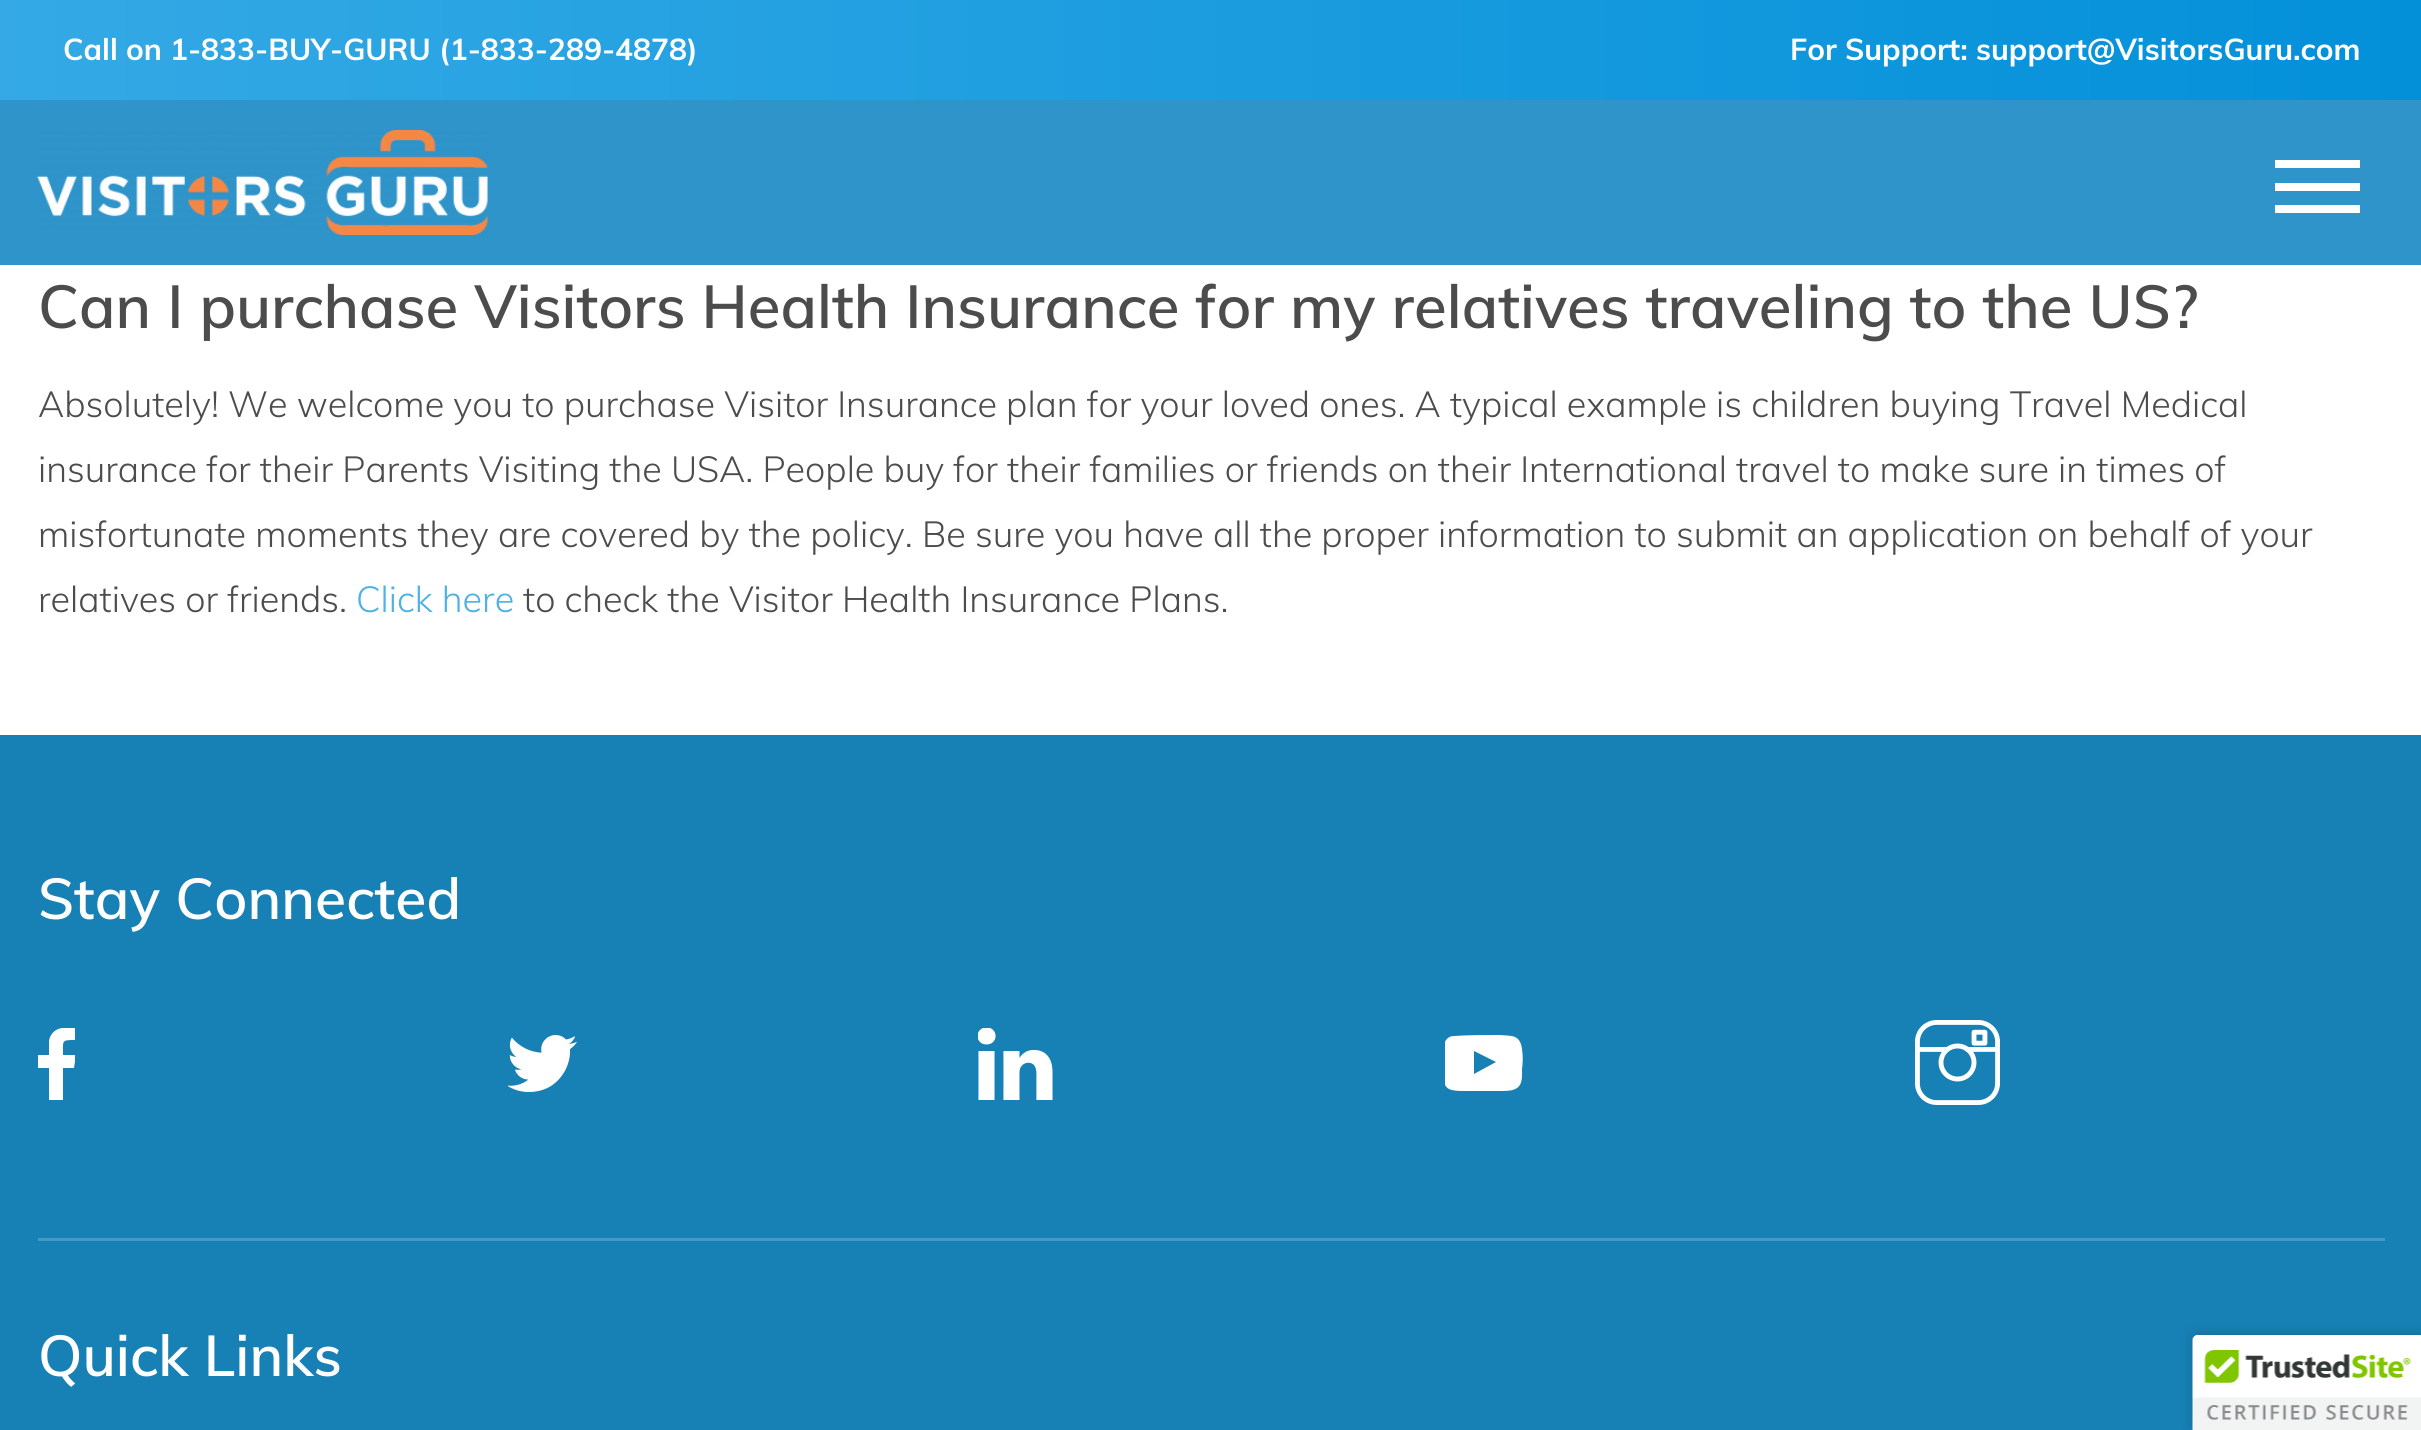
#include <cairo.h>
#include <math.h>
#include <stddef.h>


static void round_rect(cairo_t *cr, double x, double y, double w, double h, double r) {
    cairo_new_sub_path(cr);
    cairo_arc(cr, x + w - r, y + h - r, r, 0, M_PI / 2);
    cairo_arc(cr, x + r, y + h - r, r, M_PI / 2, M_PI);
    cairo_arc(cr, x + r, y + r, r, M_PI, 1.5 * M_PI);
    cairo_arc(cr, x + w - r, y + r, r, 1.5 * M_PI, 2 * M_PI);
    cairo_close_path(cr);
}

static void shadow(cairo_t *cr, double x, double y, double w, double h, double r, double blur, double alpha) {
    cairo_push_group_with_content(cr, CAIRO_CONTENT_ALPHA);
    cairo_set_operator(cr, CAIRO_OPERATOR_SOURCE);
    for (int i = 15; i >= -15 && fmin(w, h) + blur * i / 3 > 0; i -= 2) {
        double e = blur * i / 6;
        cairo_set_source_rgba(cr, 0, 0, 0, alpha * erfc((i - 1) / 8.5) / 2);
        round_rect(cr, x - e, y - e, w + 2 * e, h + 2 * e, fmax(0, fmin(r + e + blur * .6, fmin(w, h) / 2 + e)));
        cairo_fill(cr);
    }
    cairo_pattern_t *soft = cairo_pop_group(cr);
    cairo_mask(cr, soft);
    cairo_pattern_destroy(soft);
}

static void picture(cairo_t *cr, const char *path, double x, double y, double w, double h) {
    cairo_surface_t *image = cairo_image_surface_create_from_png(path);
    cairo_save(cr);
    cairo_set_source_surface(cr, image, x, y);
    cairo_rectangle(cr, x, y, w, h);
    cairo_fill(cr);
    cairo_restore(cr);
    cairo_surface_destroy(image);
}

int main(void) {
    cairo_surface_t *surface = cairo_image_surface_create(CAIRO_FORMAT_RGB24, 2421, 1430);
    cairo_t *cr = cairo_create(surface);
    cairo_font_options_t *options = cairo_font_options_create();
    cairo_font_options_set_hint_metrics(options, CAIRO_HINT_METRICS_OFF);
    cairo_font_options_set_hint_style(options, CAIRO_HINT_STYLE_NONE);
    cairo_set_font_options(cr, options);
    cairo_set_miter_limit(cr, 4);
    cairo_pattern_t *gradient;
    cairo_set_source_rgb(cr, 1, 1, 1);
    cairo_paint(cr);
    gradient = cairo_pattern_create_linear(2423, 50, 0, 50);
    cairo_pattern_add_color_stop_rgba(gradient, 0, 0.012, 0.565, 0.851, 1);
    cairo_pattern_add_color_stop_rgba(gradient, 1, 0.204, 0.663, 0.898, 1);
    cairo_set_source(cr, gradient);
    cairo_pattern_destroy(gradient);
    cairo_rectangle(cr, 0, 0, 2421, 100);
    cairo_fill(cr);
    cairo_select_font_face(cr, "Muli", CAIRO_FONT_SLANT_NORMAL, CAIRO_FONT_WEIGHT_BOLD);
    cairo_set_font_size(cr, 30);
    cairo_set_source_rgb(cr, 1, 1, 1);
    cairo_move_to(cr, 63, 60);
    cairo_show_text(cr, "Call on 1-833-BUY-GURU (1-833-289-4878)");
    cairo_move_to(cr, 1790, 60);
    cairo_show_text(cr, "For Support: support@VisitorsGuru.com");
    cairo_set_source_rgb(cr, 0.18, 0.58, 0.792);
    cairo_rectangle(cr, 0, 100, 2421, 165);
    cairo_fill(cr);
    picture(cr, "img1.png", 37, 130, 451, 105);
    cairo_set_source_rgb(cr, 1, 1, 1);
    cairo_rectangle(cr, 2275, 183, 85, 8);
    cairo_fill(cr);
    cairo_rectangle(cr, 2275, 160, 85, 8);
    cairo_fill(cr);
    cairo_rectangle(cr, 2275, 205, 85, 8);
    cairo_fill(cr);
    cairo_select_font_face(cr, "Muli SemiBold", CAIRO_FONT_SLANT_NORMAL, CAIRO_FONT_WEIGHT_NORMAL);
    cairo_set_font_size(cr, 60);
    cairo_set_source_rgb(cr, 0.298, 0.298, 0.298);
    cairo_move_to(cr, 38, 328);
    cairo_show_text(cr, "Can I purchase Visitors Health Insurance for my relatives traveling to the US?");
    cairo_select_font_face(cr, "Muli Light", CAIRO_FONT_SLANT_NORMAL, CAIRO_FONT_WEIGHT_NORMAL);
    cairo_set_font_size(cr, 36);
    cairo_move_to(cr, 38, 417);
    cairo_show_text(cr, "Absolutely! We welcome you to purchase Visitor Insurance plan for your loved ones. A typical example is children buying Travel Medical");
    cairo_move_to(cr, 38, 482);
    cairo_show_text(cr, "insurance for their Parents Visiting the USA. People buy for their families or friends on their International travel to make sure in times of");
    cairo_move_to(cr, 38, 547);
    cairo_show_text(cr, "misfortunate moments they are covered by the policy. Be sure you have all the proper information to submit an application on behalf of your");
    cairo_move_to(cr, 38, 612);
    cairo_show_text(cr, "relatives or friends.");
    cairo_set_source_rgb(cr, 0.298, 0.698, 0.898);
    cairo_move_to(cr, 356, 612);
    cairo_show_text(cr, "Click here");
    cairo_set_source_rgb(cr, 0.298, 0.298, 0.298);
    cairo_move_to(cr, 523, 612);
    cairo_show_text(cr, "to check the Visitor Health Insurance Plans.");
    cairo_set_source_rgb(cr, 0.09, 0.502, 0.71);
    cairo_rectangle(cr, 0, 735, 2421, 695);
    cairo_fill(cr);
    cairo_select_font_face(cr, "Muli SemiBold", CAIRO_FONT_SLANT_NORMAL, CAIRO_FONT_WEIGHT_NORMAL);
    cairo_set_font_size(cr, 57);
    cairo_set_source_rgb(cr, 1, 1, 1);
    cairo_move_to(cr, 38, 919);
    cairo_show_text(cr, "Stay Connected");
    cairo_save(cr);
    cairo_rectangle(cr, 38, 1028, 37, 72);
    cairo_clip(cr);
    cairo_set_fill_rule(cr, CAIRO_FILL_RULE_EVEN_ODD);
    cairo_new_path(cr);
    cairo_move_to(cr, 66, 1028);
    cairo_curve_to(cr, 57, 1027, 50, 1033, 49, 1041);
    cairo_line_to(cr, 49, 1055);
    cairo_line_to(cr, 38, 1055);
    cairo_line_to(cr, 38, 1068);
    cairo_line_to(cr, 49, 1068);
    cairo_line_to(cr, 49, 1102);
    cairo_line_to(cr, 63, 1102);
    cairo_line_to(cr, 63, 1068);
    cairo_line_to(cr, 74, 1068);
    cairo_line_to(cr, 76, 1055);
    cairo_line_to(cr, 63, 1055);
    cairo_curve_to(cr, 63, 1040, 61, 1040, 76, 1040);
    cairo_line_to(cr, 76, 1028);
    cairo_close_path(cr);
    cairo_fill(cr);
    cairo_restore(cr);
    picture(cr, "img2.png", 508, 1035, 69, 57);
    picture(cr, "img3.png", 978, 1028, 75, 72);
    cairo_save(cr);
    cairo_rectangle(cr, 1445, 1035, 78, 58);
    cairo_clip(cr);
    cairo_set_fill_rule(cr, CAIRO_FILL_RULE_EVEN_ODD);
    cairo_new_path(cr);
    cairo_move_to(cr, 1474, 1051);
    cairo_line_to(cr, 1496, 1062);
    cairo_line_to(cr, 1474, 1074);
    cairo_close_path(cr);
    cairo_move_to(cr, 1454, 1036);
    cairo_curve_to(cr, 1442, 1036, 1442, 1053, 1442, 1062);
    cairo_curve_to(cr, 1442, 1069, 1441, 1085, 1449, 1089);
    cairo_curve_to(cr, 1453, 1091, 1460, 1091, 1465, 1091);
    cairo_line_to(cr, 1501, 1091);
    cairo_curve_to(cr, 1506, 1091, 1513, 1091, 1517, 1088);
    cairo_curve_to(cr, 1523, 1084, 1522, 1075, 1522, 1069);
    cairo_curve_to(cr, 1523, 1062, 1523, 1056, 1522, 1049);
    cairo_curve_to(cr, 1520, 1034, 1511, 1036, 1499, 1035);
    cairo_curve_to(cr, 1484, 1035, 1469, 1035, 1454, 1036);
    cairo_close_path(cr);
    cairo_fill(cr);
    cairo_restore(cr);
    picture(cr, "img4.png", 1915, 1020, 85, 85);
    cairo_set_source_rgb(cr, 0.271, 0.6, 0.769);
    cairo_rectangle(cr, 38, 1238, 2347, 3);
    cairo_fill(cr);
    cairo_set_source_rgb(cr, 1, 1, 1);
    cairo_move_to(cr, 38, 1376);
    cairo_show_text(cr, "Quick Links");
    cairo_set_source_rgb(cr, 0, 0, 0);
    shadow(cr, 2193, 1335, 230, 95, 5, 6, 0.2);
    cairo_set_source_rgb(cr, 1, 1, 1);
    cairo_new_path(cr);
    cairo_move_to(cr, 2198, 1335);
    cairo_line_to(cr, 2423, 1335);
    cairo_line_to(cr, 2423, 1430);
    cairo_line_to(cr, 2193, 1430);
    cairo_line_to(cr, 2193, 1340);
    cairo_curve_to(cr, 2193, 1337, 2195, 1335, 2198, 1335);
    cairo_close_path(cr);
    cairo_fill(cr);
    picture(cr, "img5.png", 2192, 1335, 229, 95);
    cairo_surface_write_to_png(surface, "page.png");
    cairo_font_options_destroy(options);
    cairo_destroy(cr);
    cairo_surface_destroy(surface);
    return 0;
}
